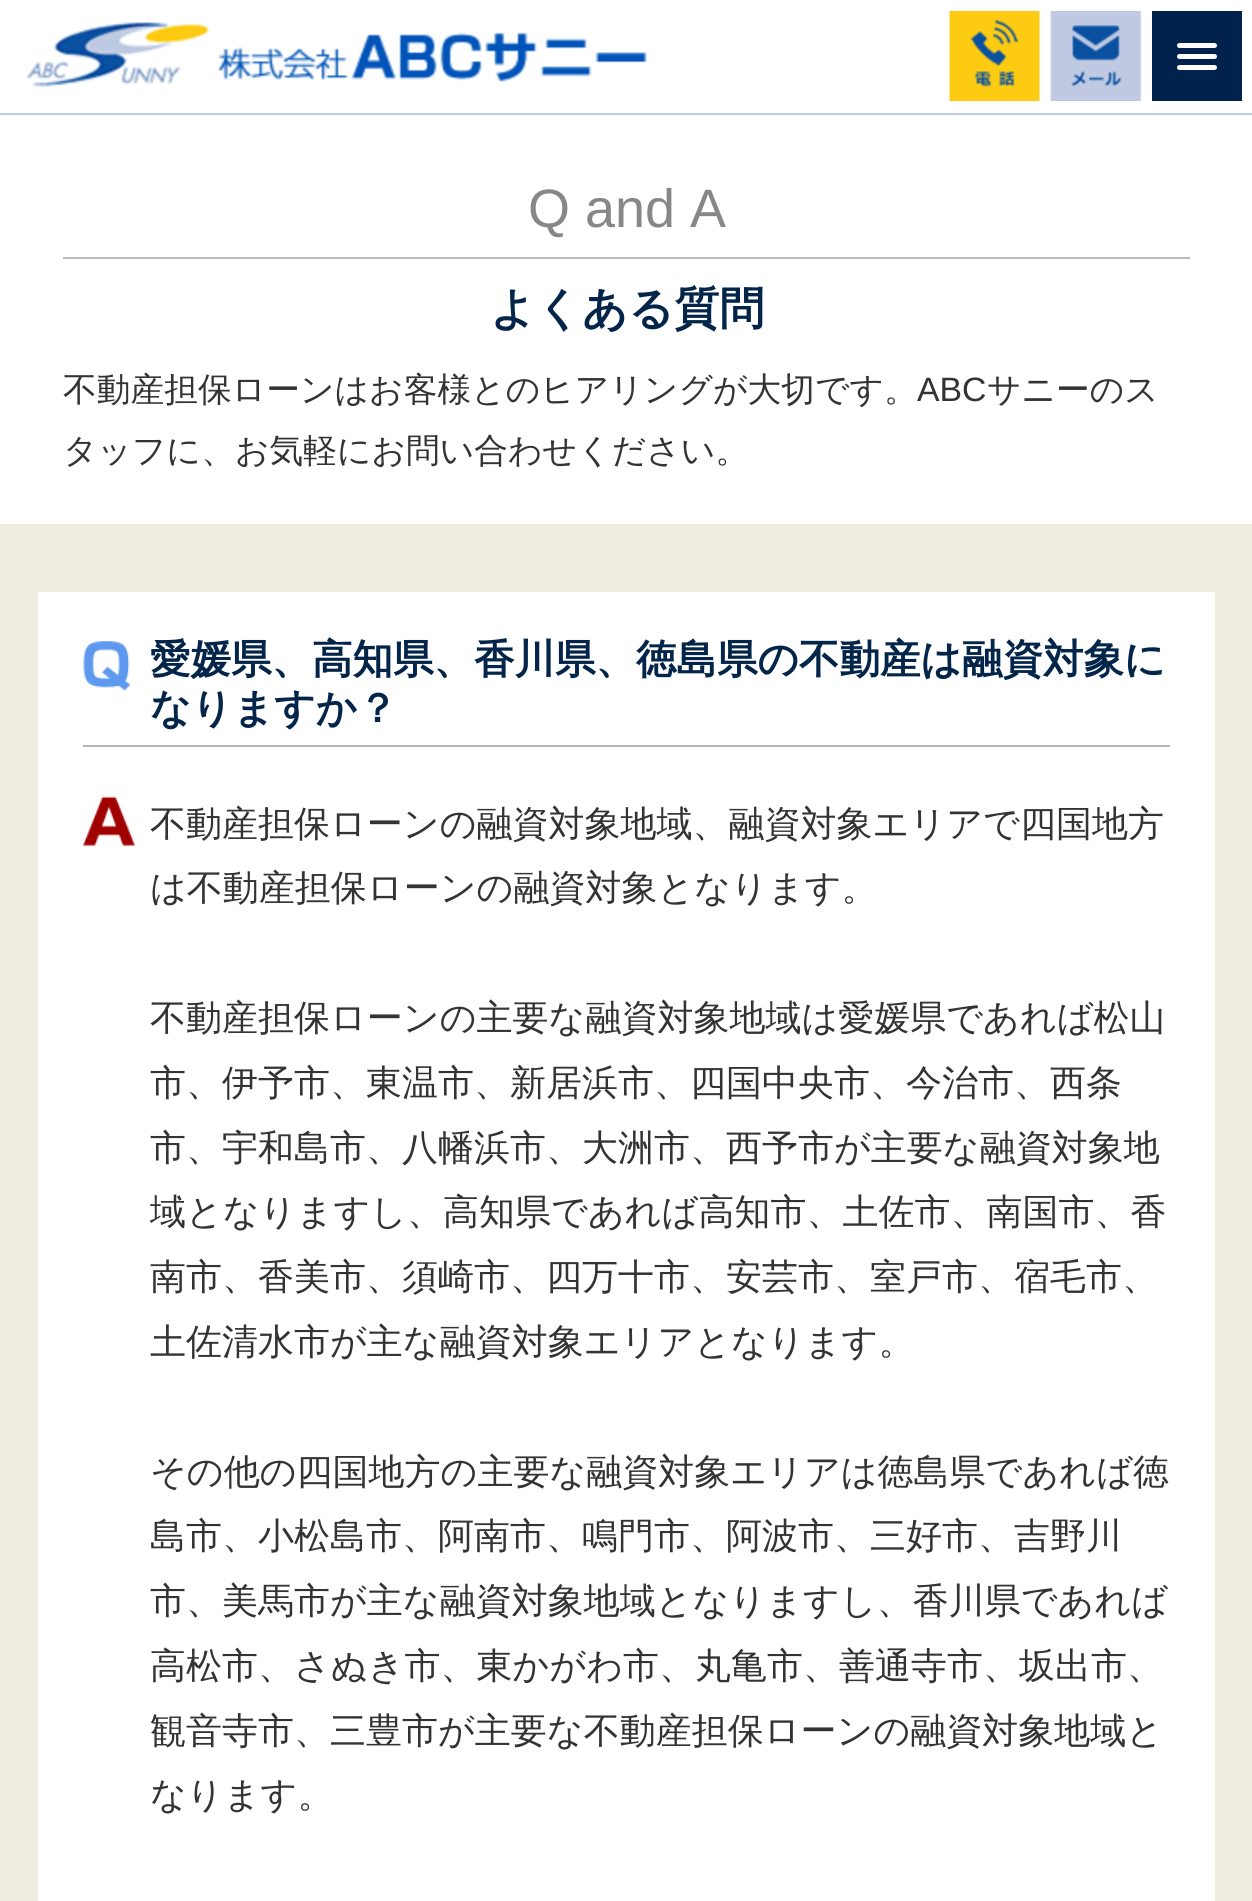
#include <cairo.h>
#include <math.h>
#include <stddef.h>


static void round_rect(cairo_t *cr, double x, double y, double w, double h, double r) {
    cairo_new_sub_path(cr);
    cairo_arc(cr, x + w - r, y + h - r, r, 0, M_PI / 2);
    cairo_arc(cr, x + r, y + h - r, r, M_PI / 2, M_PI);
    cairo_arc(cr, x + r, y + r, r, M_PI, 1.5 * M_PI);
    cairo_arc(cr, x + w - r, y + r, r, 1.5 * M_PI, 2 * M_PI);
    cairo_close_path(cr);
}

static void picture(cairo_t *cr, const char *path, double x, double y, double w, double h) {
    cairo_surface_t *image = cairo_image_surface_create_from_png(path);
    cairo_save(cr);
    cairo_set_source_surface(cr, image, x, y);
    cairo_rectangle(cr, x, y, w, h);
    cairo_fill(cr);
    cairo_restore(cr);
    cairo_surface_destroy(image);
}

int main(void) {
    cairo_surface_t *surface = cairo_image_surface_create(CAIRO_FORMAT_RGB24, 1252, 1901);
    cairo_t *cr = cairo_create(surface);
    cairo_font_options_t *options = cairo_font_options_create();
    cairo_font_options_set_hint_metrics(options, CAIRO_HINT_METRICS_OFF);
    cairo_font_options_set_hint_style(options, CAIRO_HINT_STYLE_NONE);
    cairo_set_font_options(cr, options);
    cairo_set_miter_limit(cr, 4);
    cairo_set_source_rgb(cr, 1, 1, 1);
    cairo_paint(cr);
    picture(cr, "img1.png", 26, 21, 621, 67);
    picture(cr, "img2.png", 949, 11, 91, 90);
    picture(cr, "img3.png", 1050, 11, 92, 90);
    cairo_set_source_rgb(cr, 0, 0.133, 0.298);
    cairo_rectangle(cr, 1152, 11, 90, 90);
    cairo_fill(cr);
    cairo_set_source_rgb(cr, 1, 1, 1);
    round_rect(cr, 1177, 43, 40, 5, 2.5);
    cairo_fill(cr);
    round_rect(cr, 1177, 54, 40, 5, 2.5);
    cairo_fill(cr);
    round_rect(cr, 1177, 65, 40, 5, 2.5);
    cairo_fill(cr);
    cairo_set_source_rgb(cr, 0.745, 0.788, 0.89);
    cairo_rectangle(cr, 0, 113, 1252, 2);
    cairo_fill(cr);
    cairo_set_source_rgb(cr, 0.729, 0.729, 0.729);
    cairo_rectangle(cr, 63, 257, 1127, 2);
    cairo_fill(cr);
    cairo_select_font_face(cr, "Liberation Sans", CAIRO_FONT_SLANT_NORMAL, CAIRO_FONT_WEIGHT_NORMAL);
    cairo_set_font_size(cr, 54);
    cairo_set_source_rgb(cr, 0.529, 0.529, 0.529);
    cairo_move_to(cr, 528, 227);
    cairo_show_text(cr, "Q and A");
    cairo_select_font_face(cr, "WenQuanYi Zen Hei", CAIRO_FONT_SLANT_NORMAL, CAIRO_FONT_WEIGHT_BOLD);
    cairo_set_font_size(cr, 45);
    cairo_set_source_rgb(cr, 0.016, 0.145, 0.29);
    cairo_move_to(cr, 490, 324);
    cairo_show_text(cr, "よくある質問");
    cairo_select_font_face(cr, "WenQuanYi Zen Hei Medium", CAIRO_FONT_SLANT_NORMAL, CAIRO_FONT_WEIGHT_NORMAL);
    cairo_set_font_size(cr, 33.75);
    cairo_set_source_rgb(cr, 0.2, 0.2, 0.2);
    cairo_move_to(cr, 63, 401);
    cairo_show_text(cr, "不動産担保ローンはお客様とのヒアリングが大切です。");
    cairo_select_font_face(cr, "Liberation Sans", CAIRO_FONT_SLANT_NORMAL, CAIRO_FONT_WEIGHT_NORMAL);
    cairo_move_to(cr, 917, 401);
    cairo_show_text(cr, "ABC");
    cairo_select_font_face(cr, "WenQuanYi Zen Hei Medium", CAIRO_FONT_SLANT_NORMAL, CAIRO_FONT_WEIGHT_NORMAL);
    cairo_move_to(cr, 987, 401);
    cairo_show_text(cr, "サニーのス");
    cairo_move_to(cr, 63, 462);
    cairo_show_text(cr, "タッフに、お気軽にお問い合わせください。");
    cairo_set_source_rgb(cr, 0.937, 0.929, 0.886);
    cairo_rectangle(cr, 0, 524, 1252, 1377);
    cairo_fill(cr);
    cairo_set_source_rgb(cr, 1, 1, 1);
    cairo_rectangle(cr, 38, 592, 1177, 1309);
    cairo_fill(cr);
    picture(cr, "img4.png", 83, 641, 48, 50);
    cairo_set_source_rgb(cr, 0.718, 0.718, 0.718);
    cairo_rectangle(cr, 83, 745, 1087, 2);
    cairo_fill(cr);
    cairo_select_font_face(cr, "WenQuanYi Zen Hei", CAIRO_FONT_SLANT_NORMAL, CAIRO_FONT_WEIGHT_BOLD);
    cairo_set_font_size(cr, 40.5);
    cairo_set_source_rgb(cr, 0.016, 0.145, 0.29);
    cairo_move_to(cr, 150, 673);
    cairo_show_text(cr, "愛媛県、高知県、香川県、徳島県の不動産は融資対象に");
    cairo_move_to(cr, 150, 722);
    cairo_show_text(cr, "なりますか？");
    picture(cr, "img5.png", 83, 796, 52, 50);
    cairo_select_font_face(cr, "WenQuanYi Zen Hei Medium", CAIRO_FONT_SLANT_NORMAL, CAIRO_FONT_WEIGHT_NORMAL);
    cairo_set_font_size(cr, 36);
    cairo_set_source_rgb(cr, 0.2, 0.2, 0.2);
    cairo_move_to(cr, 150, 836);
    cairo_show_text(cr, "不動産担保ローンの融資対象地域、融資対象エリアで四国地方");
    cairo_move_to(cr, 150, 900);
    cairo_show_text(cr, "は不動産担保ローンの融資対象となります。");
    cairo_move_to(cr, 150, 1030);
    cairo_show_text(cr, "不動産担保ローンの主要な融資対象地域は愛媛県であれば松山");
    cairo_move_to(cr, 150, 1095);
    cairo_show_text(cr, "市、伊予市、東温市、新居浜市、四国中央市、今治市、西条");
    cairo_move_to(cr, 150, 1160);
    cairo_show_text(cr, "市、宇和島市、八幡浜市、大洲市、西予市が主要な融資対象地");
    cairo_move_to(cr, 150, 1224);
    cairo_show_text(cr, "域となりますし、高知県であれば高知市、土佐市、南国市、香");
    cairo_move_to(cr, 150, 1289);
    cairo_show_text(cr, "南市、香美市、須崎市、四万十市、安芸市、室戸市、宿毛市、");
    cairo_move_to(cr, 150, 1354);
    cairo_show_text(cr, "土佐清水市が主な融資対象エリアとなります。");
    cairo_move_to(cr, 150, 1484);
    cairo_show_text(cr, "その他の四国地方の主要な融資対象エリアは徳島県であれば徳");
    cairo_move_to(cr, 150, 1548);
    cairo_show_text(cr, "島市、小松島市、阿南市、鳴門市、阿波市、三好市、吉野川");
    cairo_move_to(cr, 150, 1613);
    cairo_show_text(cr, "市、美馬市が主な融資対象地域となりますし、香川県であれば");
    cairo_move_to(cr, 150, 1678);
    cairo_show_text(cr, "高松市、さぬき市、東かがわ市、丸亀市、善通寺市、坂出市、");
    cairo_move_to(cr, 150, 1743);
    cairo_show_text(cr, "観音寺市、三豊市が主要な不動産担保ローンの融資対象地域と");
    cairo_move_to(cr, 150, 1807);
    cairo_show_text(cr, "なります。");
    cairo_surface_write_to_png(surface, "page.png");
    cairo_font_options_destroy(options);
    cairo_destroy(cr);
    cairo_surface_destroy(surface);
    return 0;
}
